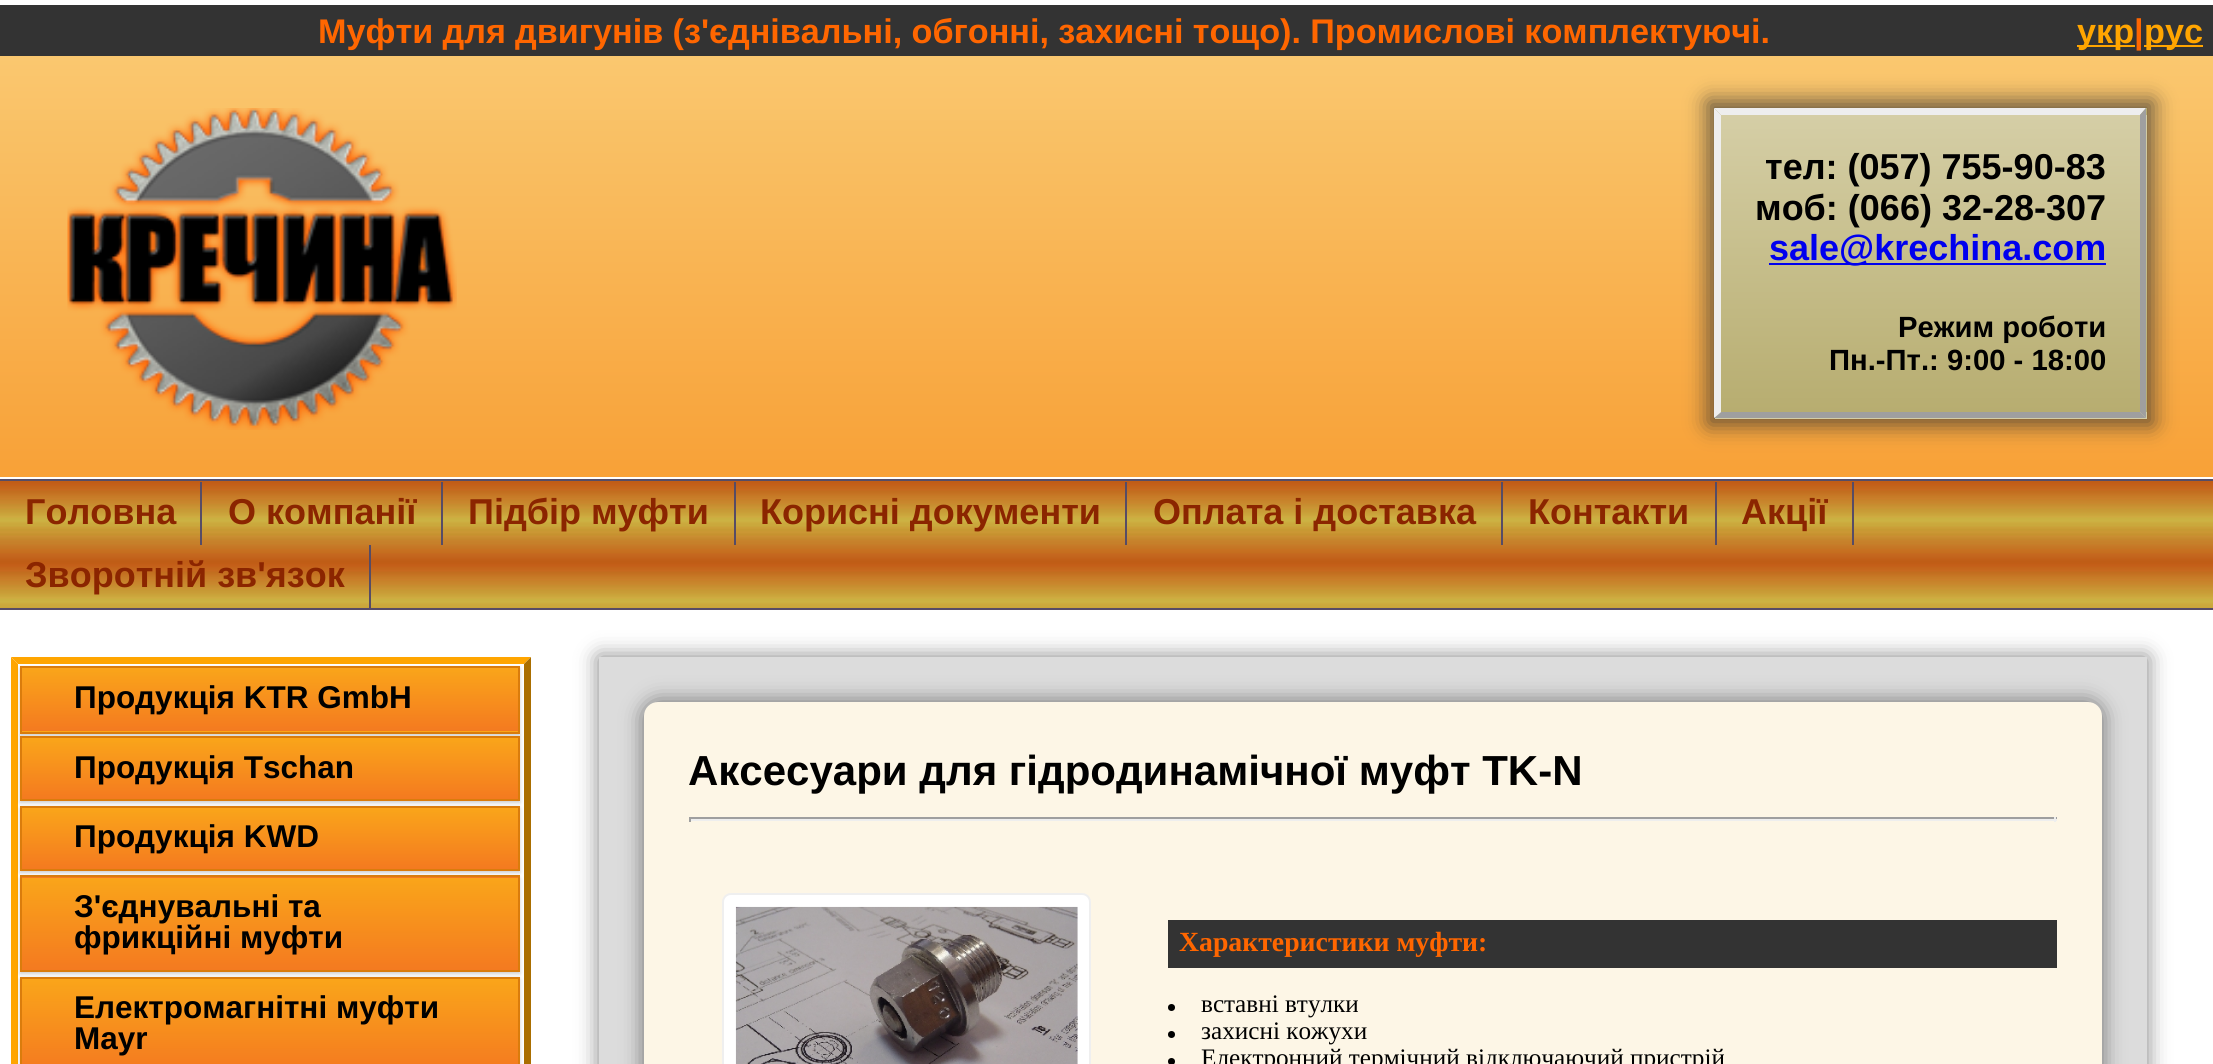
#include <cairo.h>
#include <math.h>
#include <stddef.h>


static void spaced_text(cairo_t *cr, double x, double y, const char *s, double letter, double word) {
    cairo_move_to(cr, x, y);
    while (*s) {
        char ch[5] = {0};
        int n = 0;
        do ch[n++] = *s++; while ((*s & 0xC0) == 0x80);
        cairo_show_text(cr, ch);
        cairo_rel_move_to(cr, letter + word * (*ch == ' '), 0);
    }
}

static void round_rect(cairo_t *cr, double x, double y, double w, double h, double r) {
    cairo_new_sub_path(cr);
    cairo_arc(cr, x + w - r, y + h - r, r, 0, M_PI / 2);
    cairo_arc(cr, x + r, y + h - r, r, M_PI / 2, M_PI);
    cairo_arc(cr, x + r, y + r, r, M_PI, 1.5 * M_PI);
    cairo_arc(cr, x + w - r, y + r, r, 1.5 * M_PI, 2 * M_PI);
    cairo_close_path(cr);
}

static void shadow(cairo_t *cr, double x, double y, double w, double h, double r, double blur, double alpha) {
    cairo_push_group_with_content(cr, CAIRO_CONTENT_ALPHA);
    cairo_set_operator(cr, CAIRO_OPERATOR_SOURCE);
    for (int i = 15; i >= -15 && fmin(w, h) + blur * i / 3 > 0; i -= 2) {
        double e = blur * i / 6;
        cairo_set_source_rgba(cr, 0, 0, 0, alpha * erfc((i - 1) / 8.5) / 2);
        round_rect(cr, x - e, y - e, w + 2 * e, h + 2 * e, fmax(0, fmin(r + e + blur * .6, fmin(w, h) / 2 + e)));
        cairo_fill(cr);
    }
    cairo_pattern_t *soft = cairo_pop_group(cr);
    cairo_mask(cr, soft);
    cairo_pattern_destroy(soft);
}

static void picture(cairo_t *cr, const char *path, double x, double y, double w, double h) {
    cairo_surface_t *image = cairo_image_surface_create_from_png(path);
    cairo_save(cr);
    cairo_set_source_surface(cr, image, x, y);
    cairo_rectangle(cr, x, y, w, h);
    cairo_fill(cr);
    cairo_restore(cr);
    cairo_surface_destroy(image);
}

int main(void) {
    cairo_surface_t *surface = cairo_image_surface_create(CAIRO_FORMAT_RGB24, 2213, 1064);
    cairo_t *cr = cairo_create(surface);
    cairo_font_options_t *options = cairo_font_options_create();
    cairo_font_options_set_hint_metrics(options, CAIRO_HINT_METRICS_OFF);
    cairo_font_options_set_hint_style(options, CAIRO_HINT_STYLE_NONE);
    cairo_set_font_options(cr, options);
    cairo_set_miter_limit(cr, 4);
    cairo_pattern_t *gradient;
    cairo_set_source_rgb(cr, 1, 1, 1);
    cairo_paint(cr);
    gradient = cairo_pattern_create_linear(1107, 4.5, 1107, 477);
    cairo_pattern_add_color_stop_rgba(gradient, 0, 0.98, 0.8, 0.463, 1);
    cairo_pattern_add_color_stop_rgba(gradient, 1, 0.973, 0.631, 0.216, 1);
    cairo_set_source(cr, gradient);
    cairo_pattern_destroy(gradient);
    cairo_rectangle(cr, 0, 56, 2213, 421);
    cairo_fill(cr);
    cairo_set_source_rgb(cr, 0.2, 0.2, 0.2);
    cairo_rectangle(cr, 0, 5, 2213, 51);
    cairo_fill(cr);
    cairo_select_font_face(cr, "Liberation Sans", CAIRO_FONT_SLANT_NORMAL, CAIRO_FONT_WEIGHT_BOLD);
    cairo_set_font_size(cr, 34.2);
    cairo_set_source_rgb(cr, 1, 0.4, 0);
    spaced_text(cr, 318, 43, "Муфти для двигунів (з'єднівальні, обгонні, захисні тощо). Промислові комплектуючі.", 0, -0.25);
    cairo_set_source_rgb(cr, 1, 0.647, 0);
    cairo_rectangle(cr, 2077, 45, 58, 2);
    cairo_fill(cr);
    cairo_move_to(cr, 2077, 43);
    cairo_show_text(cr, "укр");
    cairo_set_source_rgb(cr, 1, 0.4, 0);
    cairo_move_to(cr, 2134, 43);
    cairo_show_text(cr, "|");
    cairo_set_source_rgb(cr, 1, 0.647, 0);
    cairo_rectangle(cr, 2144, 45, 59, 2);
    cairo_fill(cr);
    cairo_move_to(cr, 2144, 43);
    cairo_show_text(cr, "рус");
    picture(cr, "img1.png", 67, 108, 390, 322);
    cairo_set_source_rgb(cr, 0.196, 0.196, 0.196);
    shadow(cr, 1708, 101, 445, 324, 0, 11, 0.75);
    gradient = cairo_pattern_create_linear(1931, -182, 1931, 115);
    cairo_pattern_add_color_stop_rgba(gradient, 0, 0.835, 0.808, 0.651, 1);
    cairo_pattern_add_color_stop_rgba(gradient, 0.4, 0.788, 0.757, 0.565, 1);
    cairo_pattern_add_color_stop_rgba(gradient, 1, 0.718, 0.678, 0.439, 1);
    cairo_set_source(cr, gradient);
    cairo_pattern_destroy(gradient);
    cairo_rectangle(cr, 1715, 108, 432, 7);
    cairo_fill(cr);
    gradient = cairo_pattern_create_linear(1931, 115, 1931, 412);
    cairo_pattern_add_color_stop_rgba(gradient, 0, 0.835, 0.808, 0.651, 1);
    cairo_pattern_add_color_stop_rgba(gradient, 0.4, 0.788, 0.757, 0.565, 1);
    cairo_pattern_add_color_stop_rgba(gradient, 1, 0.718, 0.678, 0.439, 1);
    cairo_set_source(cr, gradient);
    cairo_pattern_destroy(gradient);
    cairo_rectangle(cr, 1721, 115, 426, 297);
    cairo_fill(cr);
    gradient = cairo_pattern_create_linear(1931, 412, 1931, 709);
    cairo_pattern_add_color_stop_rgba(gradient, 0, 0.835, 0.808, 0.651, 1);
    cairo_pattern_add_color_stop_rgba(gradient, 0.4, 0.788, 0.757, 0.565, 1);
    cairo_pattern_add_color_stop_rgba(gradient, 1, 0.718, 0.678, 0.439, 1);
    cairo_set_source(cr, gradient);
    cairo_pattern_destroy(gradient);
    cairo_rectangle(cr, 1715, 412, 432, 7);
    cairo_fill(cr);
    cairo_set_source_rgb(cr, 0.933, 0.933, 0.933);
    cairo_new_path(cr);
    cairo_move_to(cr, 1714, 108);
    cairo_line_to(cr, 2146, 108);
    cairo_line_to(cr, 2140, 115);
    cairo_line_to(cr, 1721, 115);
    cairo_close_path(cr);
    cairo_fill(cr);
    cairo_set_source_rgb(cr, 0.624, 0.624, 0.624);
    cairo_new_path(cr);
    cairo_move_to(cr, 2146, 108);
    cairo_line_to(cr, 2146, 418);
    cairo_line_to(cr, 2140, 412);
    cairo_line_to(cr, 2140, 115);
    cairo_close_path(cr);
    cairo_fill(cr);
    cairo_new_path(cr);
    cairo_move_to(cr, 2146, 418);
    cairo_line_to(cr, 1714, 418);
    cairo_line_to(cr, 1721, 412);
    cairo_line_to(cr, 2140, 412);
    cairo_close_path(cr);
    cairo_fill(cr);
    cairo_set_source_rgb(cr, 0.933, 0.933, 0.933);
    cairo_new_path(cr);
    cairo_move_to(cr, 1714, 418);
    cairo_line_to(cr, 1714, 108);
    cairo_line_to(cr, 1721, 115);
    cairo_line_to(cr, 1721, 412);
    cairo_close_path(cr);
    cairo_fill(cr);
    cairo_set_font_size(cr, 36);
    cairo_set_source_rgb(cr, 0, 0, 0);
    cairo_move_to(cr, 1765, 179);
    cairo_show_text(cr, "тел: (057) 755-90-83");
    cairo_move_to(cr, 1755, 220);
    cairo_show_text(cr, "моб: (066) 32-28-307");
    cairo_set_source_rgb(cr, 0, 0, 0.933);
    cairo_rectangle(cr, 1769, 263, 337, 2);
    cairo_fill(cr);
    cairo_move_to(cr, 1769, 260);
    cairo_show_text(cr, "sale@krechina.com");
    cairo_set_font_size(cr, 29.25);
    cairo_set_source_rgb(cr, 0, 0, 0);
    cairo_move_to(cr, 1898, 337);
    cairo_show_text(cr, "Режим роботи");
    cairo_move_to(cr, 1829, 370);
    cairo_show_text(cr, "Пн.-Пт.: 9:00 - 18:00");
    picture(cr, "img2.png", 0, 481, 2213, 127);
    cairo_set_source_rgb(cr, 0.337, 0.298, 0.4);
    cairo_rectangle(cr, 0, 479, 2213, 2);
    cairo_fill(cr);
    cairo_rectangle(cr, 0, 608, 2213, 2);
    cairo_fill(cr);
    cairo_rectangle(cr, 200, 482, 2, 63);
    cairo_fill(cr);
    cairo_set_font_size(cr, 36);
    cairo_set_source_rgb(cr, 0.545, 0.145, 0);
    cairo_move_to(cr, 25, 524);
    cairo_show_text(cr, "Головна");
    cairo_set_source_rgb(cr, 0.337, 0.298, 0.4);
    cairo_rectangle(cr, 441, 482, 2, 63);
    cairo_fill(cr);
    cairo_set_source_rgb(cr, 0.545, 0.145, 0);
    cairo_move_to(cr, 228, 524);
    cairo_show_text(cr, "О компанії");
    cairo_set_source_rgb(cr, 0.337, 0.298, 0.4);
    cairo_rectangle(cr, 734, 482, 2, 63);
    cairo_fill(cr);
    cairo_set_source_rgb(cr, 0.545, 0.145, 0);
    cairo_move_to(cr, 468, 524);
    cairo_show_text(cr, "Підбір муфти");
    cairo_set_source_rgb(cr, 0.337, 0.298, 0.4);
    cairo_rectangle(cr, 1125, 482, 2, 63);
    cairo_fill(cr);
    cairo_set_source_rgb(cr, 0.545, 0.145, 0);
    cairo_move_to(cr, 760, 524);
    cairo_show_text(cr, "Корисні документи");
    cairo_set_source_rgb(cr, 0.337, 0.298, 0.4);
    cairo_rectangle(cr, 1501, 482, 2, 63);
    cairo_fill(cr);
    cairo_set_source_rgb(cr, 0.545, 0.145, 0);
    cairo_move_to(cr, 1153, 524);
    cairo_show_text(cr, "Оплата і доставка");
    cairo_set_source_rgb(cr, 0.337, 0.298, 0.4);
    cairo_rectangle(cr, 1715, 482, 2, 63);
    cairo_fill(cr);
    cairo_set_source_rgb(cr, 0.545, 0.145, 0);
    cairo_move_to(cr, 1528, 524);
    cairo_show_text(cr, "Контакти");
    cairo_set_source_rgb(cr, 0.337, 0.298, 0.4);
    cairo_rectangle(cr, 1852, 482, 2, 63);
    cairo_fill(cr);
    cairo_set_source_rgb(cr, 0.545, 0.145, 0);
    cairo_move_to(cr, 1741, 524);
    cairo_show_text(cr, "Акції");
    cairo_set_source_rgb(cr, 0.337, 0.298, 0.4);
    cairo_rectangle(cr, 369, 545, 2, 63);
    cairo_fill(cr);
    cairo_set_source_rgb(cr, 0.545, 0.145, 0);
    cairo_move_to(cr, 25, 587);
    cairo_show_text(cr, "Зворотній зв'язок");
    cairo_set_source_rgb(cr, 1, 0.647, 0);
    cairo_new_path(cr);
    cairo_move_to(cr, 11, 657);
    cairo_line_to(cr, 531, 657);
    cairo_line_to(cr, 524, 664);
    cairo_line_to(cr, 18, 664);
    cairo_close_path(cr);
    cairo_fill(cr);
    cairo_set_source_rgb(cr, 0.667, 0.431, 0);
    cairo_new_path(cr);
    cairo_move_to(cr, 531, 657);
    cairo_line_to(cr, 531, 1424);
    cairo_line_to(cr, 524, 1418);
    cairo_line_to(cr, 524, 664);
    cairo_close_path(cr);
    cairo_fill(cr);
    cairo_set_source_rgb(cr, 1, 0.647, 0);
    cairo_new_path(cr);
    cairo_move_to(cr, 11, 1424);
    cairo_line_to(cr, 11, 657);
    cairo_line_to(cr, 18, 664);
    cairo_line_to(cr, 18, 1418);
    cairo_close_path(cr);
    cairo_fill(cr);
    cairo_set_source_rgb(cr, 0, 0, 0);
    shadow(cr, 20, 668, 500, 68, 0, 2, 0.2);
    gradient = cairo_pattern_create_linear(23, 668, 23, 731);
    cairo_pattern_add_color_stop_rgba(gradient, 0, 0.98, 0.647, 0.102, 1);
    cairo_pattern_add_color_stop_rgba(gradient, 1, 0.957, 0.478, 0.125, 1);
    cairo_set_source(cr, gradient);
    cairo_pattern_destroy(gradient);
    cairo_rectangle(cr, 22, 668, 496, 63);
    cairo_fill(cr);
    gradient = cairo_pattern_create_linear(23, 731, 23, 794);
    cairo_pattern_add_color_stop_rgba(gradient, 0, 0.98, 0.647, 0.102, 1);
    cairo_pattern_add_color_stop_rgba(gradient, 1, 0.957, 0.478, 0.125, 1);
    cairo_set_source(cr, gradient);
    cairo_pattern_destroy(gradient);
    cairo_rectangle(cr, 20, 731, 500, 1);
    cairo_fill(cr);
    cairo_rectangle(cr, 21, 667, 498, 66);
    cairo_set_source_rgb(cr, 0.855, 0.486, 0.047);
    cairo_stroke(cr);
    cairo_set_font_size(cr, 31.5);
    cairo_set_source_rgb(cr, 0, 0, 0);
    cairo_move_to(cr, 74, 708);
    cairo_show_text(cr, "Продукція KTR GmbH");
    cairo_set_source_rgb(cr, 0, 0, 0);
    shadow(cr, 20, 738, 500, 65, 0, 2, 0.2);
    gradient = cairo_pattern_create_linear(23, 738, 23, 799);
    cairo_pattern_add_color_stop_rgba(gradient, 0, 0.98, 0.647, 0.102, 1);
    cairo_pattern_add_color_stop_rgba(gradient, 1, 0.957, 0.478, 0.125, 1);
    cairo_set_source(cr, gradient);
    cairo_pattern_destroy(gradient);
    cairo_rectangle(cr, 22, 738, 496, 61);
    cairo_fill(cr);
    cairo_rectangle(cr, 21, 737, 498, 63);
    cairo_set_source_rgb(cr, 0.855, 0.486, 0.047);
    cairo_stroke(cr);
    cairo_set_source_rgb(cr, 0, 0, 0);
    cairo_move_to(cr, 74, 778);
    cairo_show_text(cr, "Продукція Tschan");
    cairo_set_source_rgb(cr, 0, 0, 0);
    shadow(cr, 20, 808, 500, 65, 0, 2, 0.2);
    gradient = cairo_pattern_create_linear(23, 808, 23, 869);
    cairo_pattern_add_color_stop_rgba(gradient, 0, 0.98, 0.647, 0.102, 1);
    cairo_pattern_add_color_stop_rgba(gradient, 1, 0.957, 0.478, 0.125, 1);
    cairo_set_source(cr, gradient);
    cairo_pattern_destroy(gradient);
    cairo_rectangle(cr, 22, 808, 496, 61);
    cairo_fill(cr);
    cairo_rectangle(cr, 21, 807, 498, 63);
    cairo_set_source_rgb(cr, 0.855, 0.486, 0.047);
    cairo_stroke(cr);
    cairo_set_source_rgb(cr, 0, 0, 0);
    cairo_move_to(cr, 74, 847);
    cairo_show_text(cr, "Продукція KWD");
    cairo_set_source_rgb(cr, 0, 0, 0);
    shadow(cr, 20, 878, 500, 96, 0, 2, 0.2);
    gradient = cairo_pattern_create_linear(23, 785, 23, 878);
    cairo_pattern_add_color_stop_rgba(gradient, 0, 0.98, 0.647, 0.102, 1);
    cairo_pattern_add_color_stop_rgba(gradient, 1, 0.957, 0.478, 0.125, 1);
    cairo_set_source(cr, gradient);
    cairo_pattern_destroy(gradient);
    cairo_rectangle(cr, 20, 877, 500, 1);
    cairo_fill(cr);
    gradient = cairo_pattern_create_linear(23, 878, 23, 970);
    cairo_pattern_add_color_stop_rgba(gradient, 0, 0.98, 0.647, 0.102, 1);
    cairo_pattern_add_color_stop_rgba(gradient, 1, 0.957, 0.478, 0.125, 1);
    cairo_set_source(cr, gradient);
    cairo_pattern_destroy(gradient);
    cairo_rectangle(cr, 22, 878, 496, 92);
    cairo_fill(cr);
    cairo_rectangle(cr, 21, 876, 498, 95);
    cairo_set_source_rgb(cr, 0.855, 0.486, 0.047);
    cairo_stroke(cr);
    cairo_set_source_rgb(cr, 0, 0, 0);
    cairo_move_to(cr, 74, 917);
    cairo_show_text(cr, "З'єднувальні та");
    cairo_move_to(cr, 74, 948);
    cairo_show_text(cr, "фрикційні муфти");
    cairo_set_source_rgb(cr, 0, 0, 0);
    shadow(cr, 20, 979, 500, 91, 0, 2, 0.2);
    gradient = cairo_pattern_create_linear(23, 979, 23, 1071);
    cairo_pattern_add_color_stop_rgba(gradient, 0, 0.98, 0.647, 0.102, 1);
    cairo_pattern_add_color_stop_rgba(gradient, 1, 0.957, 0.478, 0.125, 1);
    cairo_set_source(cr, gradient);
    cairo_pattern_destroy(gradient);
    cairo_rectangle(cr, 22, 979, 496, 85);
    cairo_fill(cr);
    cairo_rectangle(cr, 21, 978, 498, 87);
    cairo_set_source_rgb(cr, 0.855, 0.486, 0.047);
    cairo_stroke(cr);
    cairo_set_source_rgb(cr, 0, 0, 0);
    cairo_move_to(cr, 74, 1018);
    cairo_show_text(cr, "Електромагнітні муфти");
    cairo_move_to(cr, 74, 1049);
    cairo_show_text(cr, "Mayr");
    cairo_set_source_rgb(cr, 0, 0, 0);
    shadow(cr, 599, 657, 1548, 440, 0, 11, 0.5);
    cairo_set_source_rgb(cr, 0.863, 0.863, 0.863);
    cairo_rectangle(cr, 599, 657, 1548, 407);
    cairo_fill(cr);
    cairo_set_source_rgb(cr, 0, 0, 0);
    shadow(cr, 644, 702, 1458, 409, 14, 11, 0.5);
    cairo_set_source_rgb(cr, 0.992, 0.961, 0.902);
    round_rect(cr, 644, 702, 1458, 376, 14);
    cairo_fill(cr);
    cairo_set_font_size(cr, 42);
    cairo_set_source_rgb(cr, 0, 0, 0);
    cairo_move_to(cr, 688, 785);
    cairo_show_text(cr, "Аксесуари для гідродинамічної муфт TK-N");
    cairo_set_source_rgb(cr, 0.624, 0.624, 0.624);
    cairo_rectangle(cr, 689, 817, 1368, 2);
    cairo_fill(cr);
    cairo_set_source_rgb(cr, 0.933, 0.933, 0.933);
    cairo_rectangle(cr, 2054, 817, 2, 5);
    cairo_fill(cr);
    cairo_rectangle(cr, 689, 819, 1368, 2);
    cairo_fill(cr);
    cairo_set_source_rgb(cr, 0.624, 0.624, 0.624);
    cairo_rectangle(cr, 689, 817, 2, 5);
    cairo_fill(cr);
    cairo_set_source_rgb(cr, 1, 1, 1);
    round_rect(cr, 723, 894, 367, 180, 8);
    cairo_fill_preserve(cr);
    cairo_set_source_rgb(cr, 0.937, 0.937, 0.937);
    cairo_stroke(cr);
    picture(cr, "img3.png", 735, 906, 343, 158);
    cairo_set_source_rgb(cr, 0.2, 0.2, 0.2);
    cairo_rectangle(cr, 1168, 920, 889, 48);
    cairo_fill(cr);
    cairo_select_font_face(cr, "Liberation Serif", CAIRO_FONT_SLANT_NORMAL, CAIRO_FONT_WEIGHT_BOLD);
    cairo_set_font_size(cr, 27.75);
    cairo_set_source_rgb(cr, 1, 0.4, 0);
    cairo_move_to(cr, 1179, 951);
    cairo_show_text(cr, "Характеристики муфти:");
    cairo_set_source_rgb(cr, 0, 0, 0);
    cairo_new_path(cr);
    cairo_arc(cr, 1171.5, 1007.5, 3.5, 0, 2 * M_PI);
    cairo_fill(cr);
    cairo_select_font_face(cr, "Liberation Serif", CAIRO_FONT_SLANT_NORMAL, CAIRO_FONT_WEIGHT_NORMAL);
    cairo_set_font_size(cr, 25.2);
    cairo_move_to(cr, 1201, 1012);
    cairo_show_text(cr, "вставні втулки");
    cairo_new_path(cr);
    cairo_arc(cr, 1171.5, 1034.5, 3.5, 0, 2 * M_PI);
    cairo_fill(cr);
    cairo_move_to(cr, 1201, 1039);
    cairo_show_text(cr, "захисні кожухи");
    cairo_new_path(cr);
    cairo_arc(cr, 1171.5, 1061.5, 3.5, 0, 2 * M_PI);
    cairo_fill(cr);
    cairo_move_to(cr, 1201, 1066);
    cairo_show_text(cr, "Електронний термічний відключаючий пристрій");
    cairo_surface_write_to_png(surface, "page.png");
    cairo_font_options_destroy(options);
    cairo_destroy(cr);
    cairo_surface_destroy(surface);
    return 0;
}
